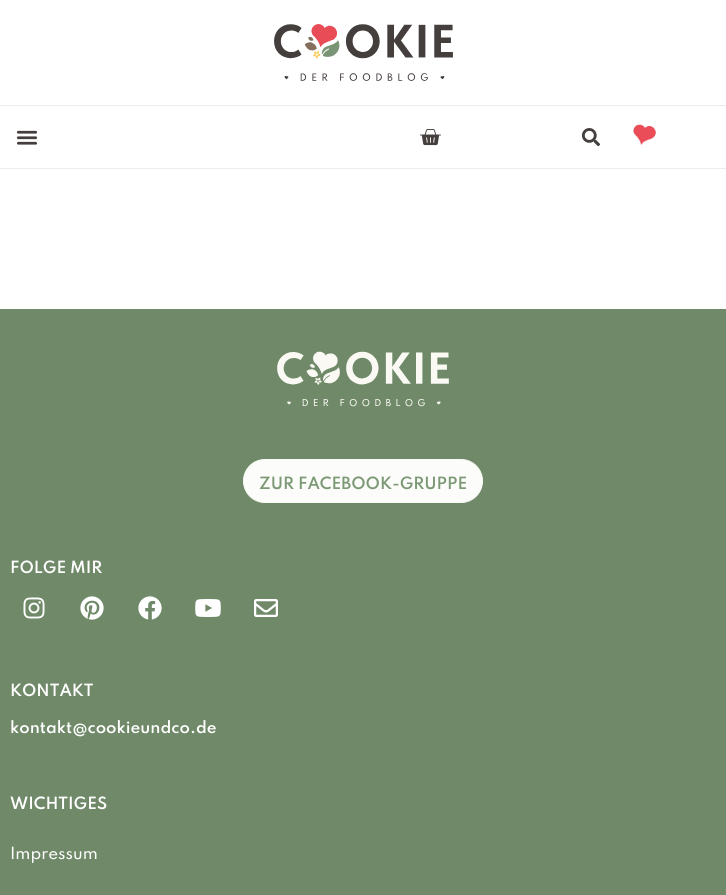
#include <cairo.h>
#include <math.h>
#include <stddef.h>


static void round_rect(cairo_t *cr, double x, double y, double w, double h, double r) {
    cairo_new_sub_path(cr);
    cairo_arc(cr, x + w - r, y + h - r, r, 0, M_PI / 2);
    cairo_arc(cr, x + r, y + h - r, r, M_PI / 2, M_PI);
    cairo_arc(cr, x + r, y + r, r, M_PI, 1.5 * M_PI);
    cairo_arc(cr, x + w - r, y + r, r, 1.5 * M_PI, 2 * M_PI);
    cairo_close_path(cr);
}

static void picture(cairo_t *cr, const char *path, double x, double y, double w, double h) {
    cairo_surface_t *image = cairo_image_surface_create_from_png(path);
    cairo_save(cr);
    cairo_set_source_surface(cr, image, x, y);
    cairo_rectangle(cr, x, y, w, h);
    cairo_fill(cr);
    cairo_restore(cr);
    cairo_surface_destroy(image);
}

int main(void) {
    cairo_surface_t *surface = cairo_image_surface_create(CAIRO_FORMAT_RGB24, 726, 895);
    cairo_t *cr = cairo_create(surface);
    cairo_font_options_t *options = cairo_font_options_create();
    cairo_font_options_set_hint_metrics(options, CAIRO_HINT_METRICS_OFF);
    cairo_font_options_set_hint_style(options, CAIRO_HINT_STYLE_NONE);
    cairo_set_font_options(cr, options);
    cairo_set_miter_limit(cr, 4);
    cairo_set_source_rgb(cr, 1, 1, 1);
    cairo_paint(cr);
    picture(cr, "img1.png", 274, 24, 179, 57);
    cairo_set_source_rgb(cr, 0.922, 0.922, 0.922);
    cairo_rectangle(cr, 0, 105, 726, 1);
    cairo_fill(cr);
    cairo_rectangle(cr, 0, 168, 726, 1);
    cairo_fill(cr);
    picture(cr, "img2.png", 16, 130, 22, 15);
    picture(cr, "img3.png", 420, 129, 21, 17);
    picture(cr, "img4.png", 581, 128, 19, 19);
    picture(cr, "img5.png", 633, 124, 23, 21);
    cairo_set_source_rgb(cr, 0.439, 0.541, 0.412);
    cairo_rectangle(cr, 0, 309, 726, 586);
    cairo_fill(cr);
    picture(cr, "img6.png", 277, 351, 172, 56);
    cairo_set_source_rgb(cr, 0.988, 0.988, 0.98);
    round_rect(cr, 243.5, 459.5, 239, 43, 21.5);
    cairo_fill_preserve(cr);
    cairo_set_source_rgb(cr, 0.976, 0.973, 0.957);
    cairo_set_line_width(cr, 1);
    cairo_stroke(cr);
    cairo_select_font_face(cr, "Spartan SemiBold", CAIRO_FONT_SLANT_NORMAL, CAIRO_FONT_WEIGHT_NORMAL);
    cairo_set_font_size(cr, 15);
    cairo_set_source_rgb(cr, 0.486, 0.6, 0.459);
    cairo_move_to(cr, 259, 489);
    cairo_show_text(cr, "ZUR FACEBOOK-GRUPPE");
    cairo_set_source_rgb(cr, 1, 1, 1);
    cairo_move_to(cr, 10, 573);
    cairo_show_text(cr, "FOLGE MIR");
    picture(cr, "img7.png", 23, 597, 22, 22);
    picture(cr, "img8.png", 80, 596, 24, 24);
    picture(cr, "img9.png", 138, 596, 24, 24);
    picture(cr, "img10.png", 195, 599, 26, 18);
    picture(cr, "img11.png", 254, 599, 24, 18);
    cairo_move_to(cr, 10, 696);
    cairo_show_text(cr, "KONTAKT");
    cairo_move_to(cr, 10, 733);
    cairo_show_text(cr, "kontakt@cookieundco.de");
    cairo_move_to(cr, 10, 809);
    cairo_show_text(cr, "WICHTIGES");
    cairo_select_font_face(cr, "Spartan Medium", CAIRO_FONT_SLANT_NORMAL, CAIRO_FONT_WEIGHT_NORMAL);
    cairo_move_to(cr, 10, 859);
    cairo_show_text(cr, "Impressum");
    cairo_surface_write_to_png(surface, "page.png");
    cairo_font_options_destroy(options);
    cairo_destroy(cr);
    cairo_surface_destroy(surface);
    return 0;
}
